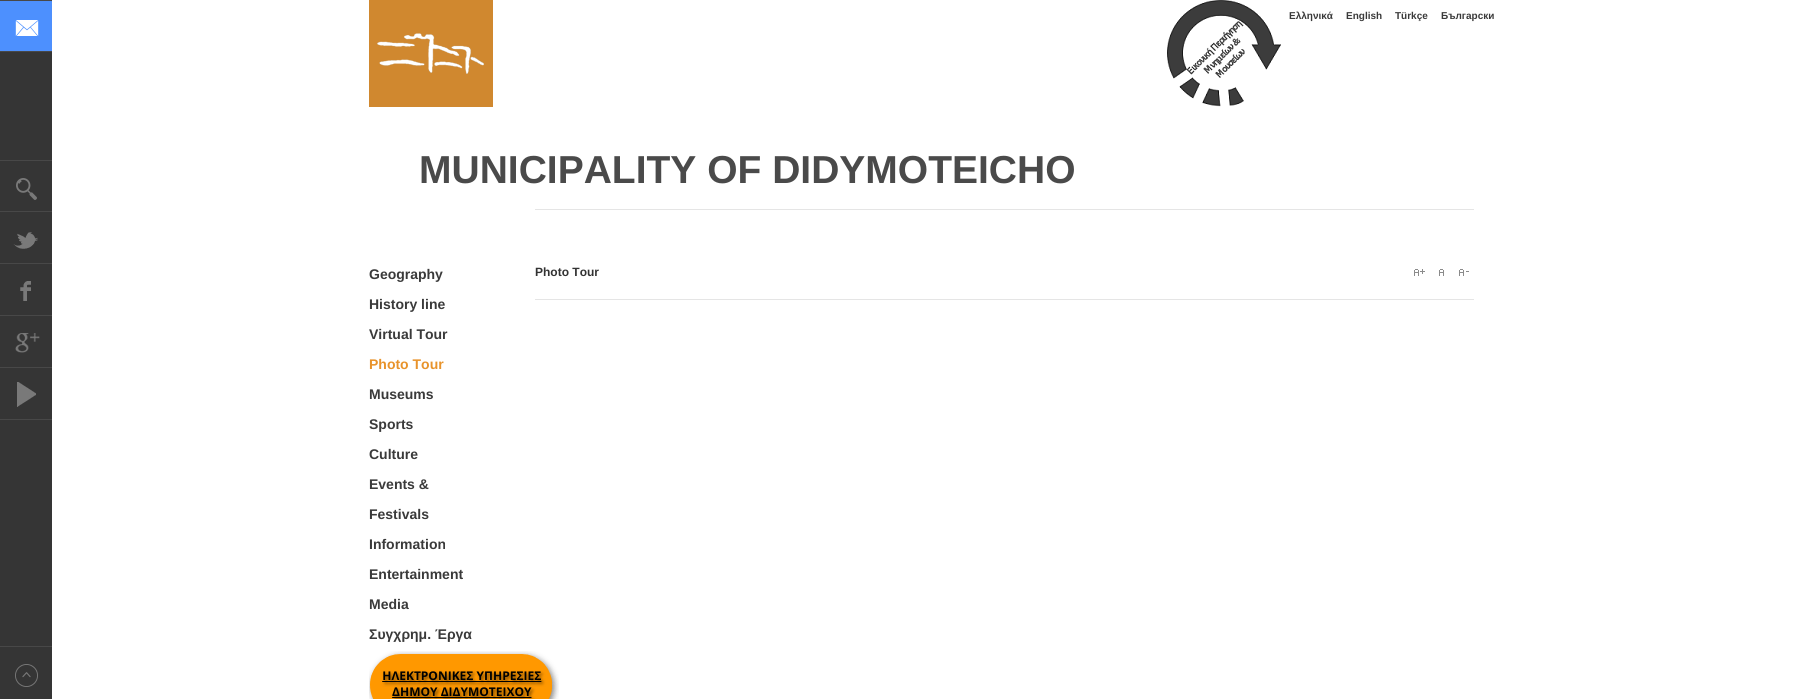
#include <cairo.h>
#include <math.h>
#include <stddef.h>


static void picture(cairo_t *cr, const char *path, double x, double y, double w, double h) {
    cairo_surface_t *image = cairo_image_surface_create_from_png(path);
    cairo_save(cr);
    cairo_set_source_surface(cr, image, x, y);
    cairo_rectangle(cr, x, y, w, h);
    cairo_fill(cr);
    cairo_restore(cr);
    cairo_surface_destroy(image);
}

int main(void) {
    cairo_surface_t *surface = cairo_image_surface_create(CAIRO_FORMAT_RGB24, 1816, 699);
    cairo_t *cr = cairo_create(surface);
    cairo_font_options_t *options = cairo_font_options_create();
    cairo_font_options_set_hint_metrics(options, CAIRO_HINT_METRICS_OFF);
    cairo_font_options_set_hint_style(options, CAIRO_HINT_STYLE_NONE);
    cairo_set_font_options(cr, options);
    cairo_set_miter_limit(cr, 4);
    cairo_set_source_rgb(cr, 0.208, 0.208, 0.208);
    cairo_paint(cr);
    cairo_set_source_rgb(cr, 1, 1, 1);
    cairo_rectangle(cr, 52, 0, 1764, 699);
    cairo_fill(cr);
    picture(cr, "img1.png", 0, 1, 52, 50);
    cairo_set_source_rgb(cr, 0.282, 0.282, 0.282);
    cairo_rectangle(cr, 0, 0, 52, 1);
    cairo_fill(cr);
    cairo_rectangle(cr, 0, 51, 52, 1);
    cairo_fill(cr);
    picture(cr, "img2.png", 16, 178, 21, 22);
    cairo_rectangle(cr, 0, 160, 52, 1);
    cairo_fill(cr);
    cairo_rectangle(cr, 0, 211, 52, 1);
    cairo_fill(cr);
    picture(cr, "img3.png", 13, 232, 25, 17);
    cairo_rectangle(cr, 0, 263, 52, 1);
    cairo_fill(cr);
    picture(cr, "img4.png", 20, 281, 11, 20);
    cairo_rectangle(cr, 0, 315, 52, 1);
    cairo_fill(cr);
    picture(cr, "img5.png", 15, 333, 25, 20);
    cairo_rectangle(cr, 0, 367, 52, 1);
    cairo_fill(cr);
    picture(cr, "img6.png", 17, 382, 19, 25);
    cairo_rectangle(cr, 0, 419, 52, 1);
    cairo_fill(cr);
    cairo_set_source_rgb(cr, 0.816, 0.533, 0.184);
    cairo_rectangle(cr, 369, 0, 124, 107);
    cairo_fill(cr);
    picture(cr, "img7.png", 377, 33, 107, 41);
    picture(cr, "img8.png", 1167, 0, 114, 107);
    cairo_select_font_face(cr, "Liberation Sans", CAIRO_FONT_SLANT_NORMAL, CAIRO_FONT_WEIGHT_BOLD);
    cairo_set_font_size(cr, 10);
    cairo_set_source_rgb(cr, 0.227, 0.227, 0.227);
    cairo_move_to(cr, 1289, 19);
    cairo_show_text(cr, "Ελληνικά");
    cairo_move_to(cr, 1346, 19);
    cairo_show_text(cr, "English");
    cairo_move_to(cr, 1395, 19);
    cairo_show_text(cr, "Türkçe");
    cairo_move_to(cr, 1441, 19);
    cairo_show_text(cr, "Български");
    cairo_set_font_size(cr, 39);
    cairo_set_source_rgb(cr, 0.29, 0.29, 0.29);
    cairo_move_to(cr, 419, 183);
    cairo_show_text(cr, "MUNICIPALITY OF DIDYMOTEICHO");
    cairo_set_font_size(cr, 14);
    cairo_set_source_rgb(cr, 0.227, 0.227, 0.227);
    cairo_move_to(cr, 369, 279);
    cairo_show_text(cr, "Geography");
    cairo_move_to(cr, 369, 309);
    cairo_show_text(cr, "History line");
    cairo_move_to(cr, 369, 339);
    cairo_show_text(cr, "Virtual Tour");
    cairo_set_source_rgb(cr, 0.91, 0.576, 0.169);
    cairo_move_to(cr, 369, 369);
    cairo_show_text(cr, "Photo Tour");
    cairo_set_source_rgb(cr, 0.227, 0.227, 0.227);
    cairo_move_to(cr, 369, 399);
    cairo_show_text(cr, "Museums");
    cairo_move_to(cr, 369, 429);
    cairo_show_text(cr, "Sports");
    cairo_move_to(cr, 369, 459);
    cairo_show_text(cr, "Culture");
    cairo_move_to(cr, 369, 489);
    cairo_show_text(cr, "Events &");
    cairo_move_to(cr, 369, 519);
    cairo_show_text(cr, "Festivals");
    cairo_move_to(cr, 369, 549);
    cairo_show_text(cr, "Information");
    cairo_move_to(cr, 369, 579);
    cairo_show_text(cr, "Entertainment");
    cairo_move_to(cr, 369, 609);
    cairo_show_text(cr, "Media");
    cairo_move_to(cr, 369, 639);
    cairo_show_text(cr, "Συγχρημ. Έργα");
    picture(cr, "img9.png", 369, 651, 190, 48);
    cairo_set_source_rgb(cr, 0.898, 0.898, 0.898);
    cairo_rectangle(cr, 535, 209, 939, 1);
    cairo_fill(cr);
    cairo_rectangle(cr, 535, 299, 939, 1);
    cairo_fill(cr);
    cairo_set_font_size(cr, 12);
    cairo_set_source_rgb(cr, 0.2, 0.2, 0.2);
    cairo_move_to(cr, 535, 276);
    cairo_show_text(cr, "Photo Tour");
    picture(cr, "img10.png", 1414, 269, 11, 7);
    picture(cr, "img11.png", 1439, 269, 5, 7);
    picture(cr, "img12.png", 1459, 269, 10, 7);
    picture(cr, "img13.png", 15, 664, 23, 23);
    cairo_set_source_rgb(cr, 0.282, 0.282, 0.282);
    cairo_rectangle(cr, 0, 646, 52, 1);
    cairo_fill(cr);
    cairo_surface_write_to_png(surface, "page.png");
    cairo_font_options_destroy(options);
    cairo_destroy(cr);
    cairo_surface_destroy(surface);
    return 0;
}
